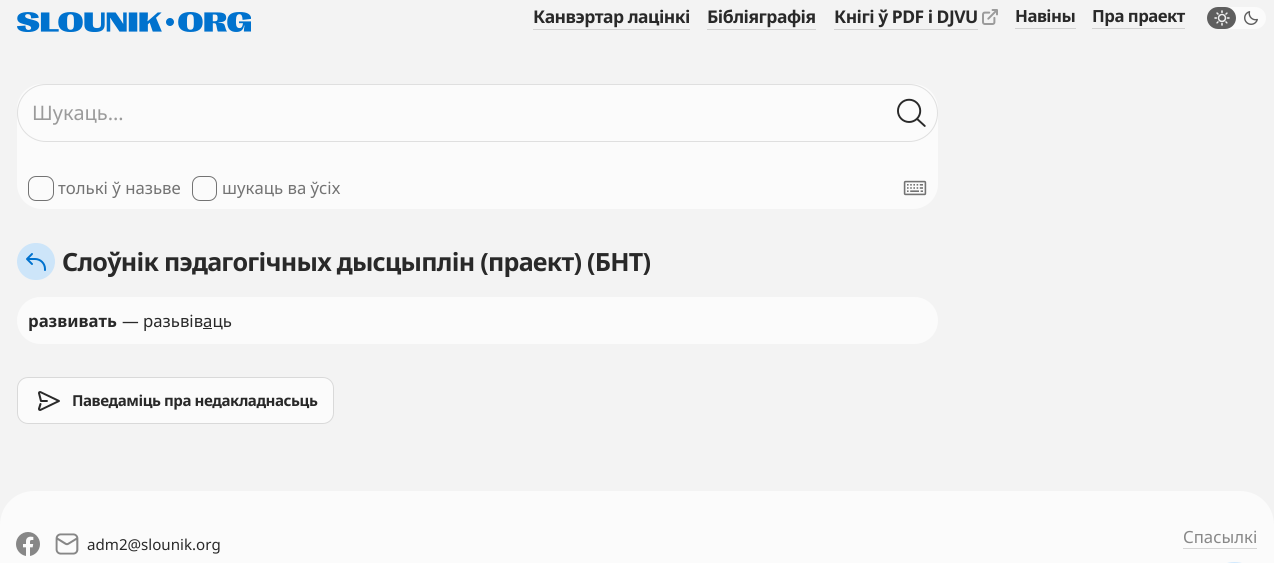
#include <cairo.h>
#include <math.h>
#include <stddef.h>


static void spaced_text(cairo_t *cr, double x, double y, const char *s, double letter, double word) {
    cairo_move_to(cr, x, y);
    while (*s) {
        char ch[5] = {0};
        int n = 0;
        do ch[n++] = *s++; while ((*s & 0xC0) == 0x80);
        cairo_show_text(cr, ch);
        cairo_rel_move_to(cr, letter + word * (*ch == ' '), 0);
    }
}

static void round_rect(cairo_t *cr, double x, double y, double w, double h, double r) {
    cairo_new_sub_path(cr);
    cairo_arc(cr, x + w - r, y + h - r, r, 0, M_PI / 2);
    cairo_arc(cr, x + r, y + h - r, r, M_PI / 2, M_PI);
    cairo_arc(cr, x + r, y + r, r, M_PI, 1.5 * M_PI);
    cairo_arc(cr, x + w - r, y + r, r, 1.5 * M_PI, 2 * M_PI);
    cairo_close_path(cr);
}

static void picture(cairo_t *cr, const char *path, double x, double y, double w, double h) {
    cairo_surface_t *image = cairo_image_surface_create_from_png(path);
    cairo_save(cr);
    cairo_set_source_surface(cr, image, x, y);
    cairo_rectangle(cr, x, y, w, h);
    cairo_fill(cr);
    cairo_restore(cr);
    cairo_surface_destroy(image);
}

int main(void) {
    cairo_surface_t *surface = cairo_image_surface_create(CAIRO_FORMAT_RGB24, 1274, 563);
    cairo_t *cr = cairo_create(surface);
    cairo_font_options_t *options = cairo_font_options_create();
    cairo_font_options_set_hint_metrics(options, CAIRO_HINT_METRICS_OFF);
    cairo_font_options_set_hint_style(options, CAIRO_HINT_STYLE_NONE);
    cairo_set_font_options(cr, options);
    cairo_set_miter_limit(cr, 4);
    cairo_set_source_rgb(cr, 0.953, 0.953, 0.953);
    cairo_paint(cr);
    picture(cr, "img1.png", 17, 12, 234, 20);
    cairo_set_source_rgb(cr, 0.824, 0.824, 0.824);
    cairo_rectangle(cr, 533, 29, 157, 1);
    cairo_fill(cr);
    cairo_select_font_face(cr, "Noto Sans", CAIRO_FONT_SLANT_NORMAL, CAIRO_FONT_WEIGHT_BOLD);
    cairo_set_font_size(cr, 17.5);
    cairo_set_source_rgb(cr, 0.161, 0.161, 0.161);
    spaced_text(cr, 533, 23, "Канвэртар лацінкі", -0.5, 0);
    cairo_set_source_rgb(cr, 0.824, 0.824, 0.824);
    cairo_rectangle(cr, 707, 29, 109, 1);
    cairo_fill(cr);
    cairo_set_source_rgb(cr, 0.161, 0.161, 0.161);
    spaced_text(cr, 707, 23, "Бібліяграфія", -0.5, 0);
    cairo_set_source_rgb(cr, 0.824, 0.824, 0.824);
    cairo_rectangle(cr, 834, 29, 144, 1);
    cairo_fill(cr);
    cairo_set_source_rgb(cr, 0.161, 0.161, 0.161);
    spaced_text(cr, 834, 23, "Кнігі ў PDF і DJVU", -0.5, 0);
    picture(cr, "img2.png", 982, 9, 16, 16);
    cairo_set_source_rgb(cr, 0.824, 0.824, 0.824);
    cairo_rectangle(cr, 1015, 28, 61, 1);
    cairo_fill(cr);
    cairo_set_font_size(cr, 16.75);
    cairo_set_source_rgb(cr, 0.161, 0.161, 0.161);
    spaced_text(cr, 1015, 22, "Навіны", -0.5, 0);
    cairo_set_source_rgb(cr, 0.824, 0.824, 0.824);
    cairo_rectangle(cr, 1092, 28, 93, 1);
    cairo_fill(cr);
    cairo_set_source_rgb(cr, 0.161, 0.161, 0.161);
    spaced_text(cr, 1092, 22, "Пра праект", -0.5, 0);
    cairo_set_source_rgb(cr, 0.984, 0.984, 0.984);
    round_rect(cr, 1207, 7, 59, 22, 11);
    cairo_fill(cr);
    cairo_set_source_rgb(cr, 0.369, 0.369, 0.369);
    round_rect(cr, 1207, 7, 29, 22, 11);
    cairo_fill(cr);
    picture(cr, "img3.png", 1214, 10, 16, 16);
    picture(cr, "img4.png", 1244, 11, 14, 14);
    cairo_set_source_rgb(cr, 0.984, 0.984, 0.984);
    round_rect(cr, 17, 84, 921, 125, 25);
    cairo_fill(cr);
    round_rect(cr, 17.5, 84.5, 920, 57, 28.5);
    cairo_set_source_rgb(cr, 0.875, 0.875, 0.875);
    cairo_set_line_width(cr, 1);
    cairo_stroke(cr);
    cairo_select_font_face(cr, "Noto Sans", CAIRO_FONT_SLANT_NORMAL, CAIRO_FONT_WEIGHT_NORMAL);
    cairo_set_font_size(cr, 20);
    cairo_set_source_rgb(cr, 0.608, 0.608, 0.608);
    cairo_move_to(cr, 32, 120);
    cairo_show_text(cr, "Шукаць…");
    picture(cr, "img5.png", 897, 98, 29, 29);
    round_rect(cr, 28.5, 176.5, 25, 24, 7.5);
    cairo_set_source_rgb(cr, 0.451, 0.451, 0.451);
    cairo_stroke(cr);
    cairo_set_font_size(cr, 16.75);
    cairo_move_to(cr, 58, 194);
    cairo_show_text(cr, "толькі ў назьве");
    round_rect(cr, 192.5, 176.5, 24, 24, 7.5);
    cairo_stroke(cr);
    cairo_move_to(cr, 222, 194);
    cairo_show_text(cr, "шукаць ва ўсіх");
    picture(cr, "img6.png", 903, 180, 24, 16);
    cairo_set_source_rgb(cr, 0.804, 0.898, 0.973);
    round_rect(cr, 17, 243, 38, 37, 18.5);
    cairo_fill(cr);
    picture(cr, "img7.png", 26, 253, 20, 18);
    cairo_select_font_face(cr, "Noto Sans", CAIRO_FONT_SLANT_NORMAL, CAIRO_FONT_WEIGHT_BOLD);
    cairo_set_font_size(cr, 25.1);
    cairo_set_source_rgb(cr, 0.161, 0.161, 0.161);
    spaced_text(cr, 62, 271, "Слоўнік пэдагогічных дысцыплін (праект) (БНТ)", -0.75, 0);
    cairo_set_source_rgb(cr, 0.984, 0.984, 0.984);
    round_rect(cr, 17, 297, 921, 47, 23.5);
    cairo_fill(cr);
    cairo_set_font_size(cr, 16.75);
    cairo_set_source_rgb(cr, 0.161, 0.161, 0.161);
    cairo_move_to(cr, 28, 327);
    cairo_show_text(cr, "развивать");
    cairo_select_font_face(cr, "Noto Sans", CAIRO_FONT_SLANT_NORMAL, CAIRO_FONT_WEIGHT_NORMAL);
    cairo_move_to(cr, 122, 327);
    cairo_show_text(cr, "— разьвіваць");
    cairo_rectangle(cr, 203, 328, 9, 1);
    cairo_fill(cr);
    cairo_set_source_rgb(cr, 0.984, 0.984, 0.984);
    round_rect(cr, 17.5, 377.5, 316, 46, 10.5);
    cairo_fill_preserve(cr);
    cairo_set_source_rgb(cr, 0.851, 0.851, 0.851);
    cairo_stroke(cr);
    picture(cr, "img8.png", 38, 391, 22, 20);
    cairo_select_font_face(cr, "Noto Sans", CAIRO_FONT_SLANT_NORMAL, CAIRO_FONT_WEIGHT_BOLD);
    cairo_set_font_size(cr, 15.1);
    cairo_set_source_rgb(cr, 0.161, 0.161, 0.161);
    spaced_text(cr, 72, 406, "Паведаміць пра недакладнасьць", -0.45, 0);
    cairo_set_source_rgb(cr, 0.984, 0.984, 0.984);
    cairo_new_path(cr);
    cairo_move_to(cr, 34, 491);
    cairo_line_to(cr, 1240, 491);
    cairo_curve_to(cr, 1259, 491, 1274, 506, 1274, 525);
    cairo_line_to(cr, 1274, 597);
    cairo_line_to(cr, 0, 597);
    cairo_line_to(cr, 0, 525);
    cairo_curve_to(cr, 0, 506, 15, 491, 34, 491);
    cairo_close_path(cr);
    cairo_fill(cr);
    picture(cr, "img9.png", 16, 532, 24, 24);
    picture(cr, "img10.png", 55, 533, 24, 22);
    cairo_select_font_face(cr, "Noto Sans", CAIRO_FONT_SLANT_NORMAL, CAIRO_FONT_WEIGHT_NORMAL);
    cairo_set_source_rgb(cr, 0.161, 0.161, 0.161);
    cairo_move_to(cr, 87, 550);
    cairo_show_text(cr, "adm2@slounik.org");
    cairo_set_font_size(cr, 16.75);
    cairo_set_source_rgb(cr, 0.529, 0.529, 0.529);
    cairo_move_to(cr, 1183, 543);
    cairo_show_text(cr, "Спасылкі");
    cairo_set_source_rgb(cr, 0.839, 0.839, 0.839);
    cairo_rectangle(cr, 1183, 548, 74, 1);
    cairo_fill(cr);
    cairo_set_source_rgb(cr, 0.824, 0.914, 0.992);
    round_rect(cr, 1207, 562, 55, 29, 27.5);
    cairo_fill(cr);
    cairo_surface_write_to_png(surface, "page.png");
    cairo_font_options_destroy(options);
    cairo_destroy(cr);
    cairo_surface_destroy(surface);
    return 0;
}
